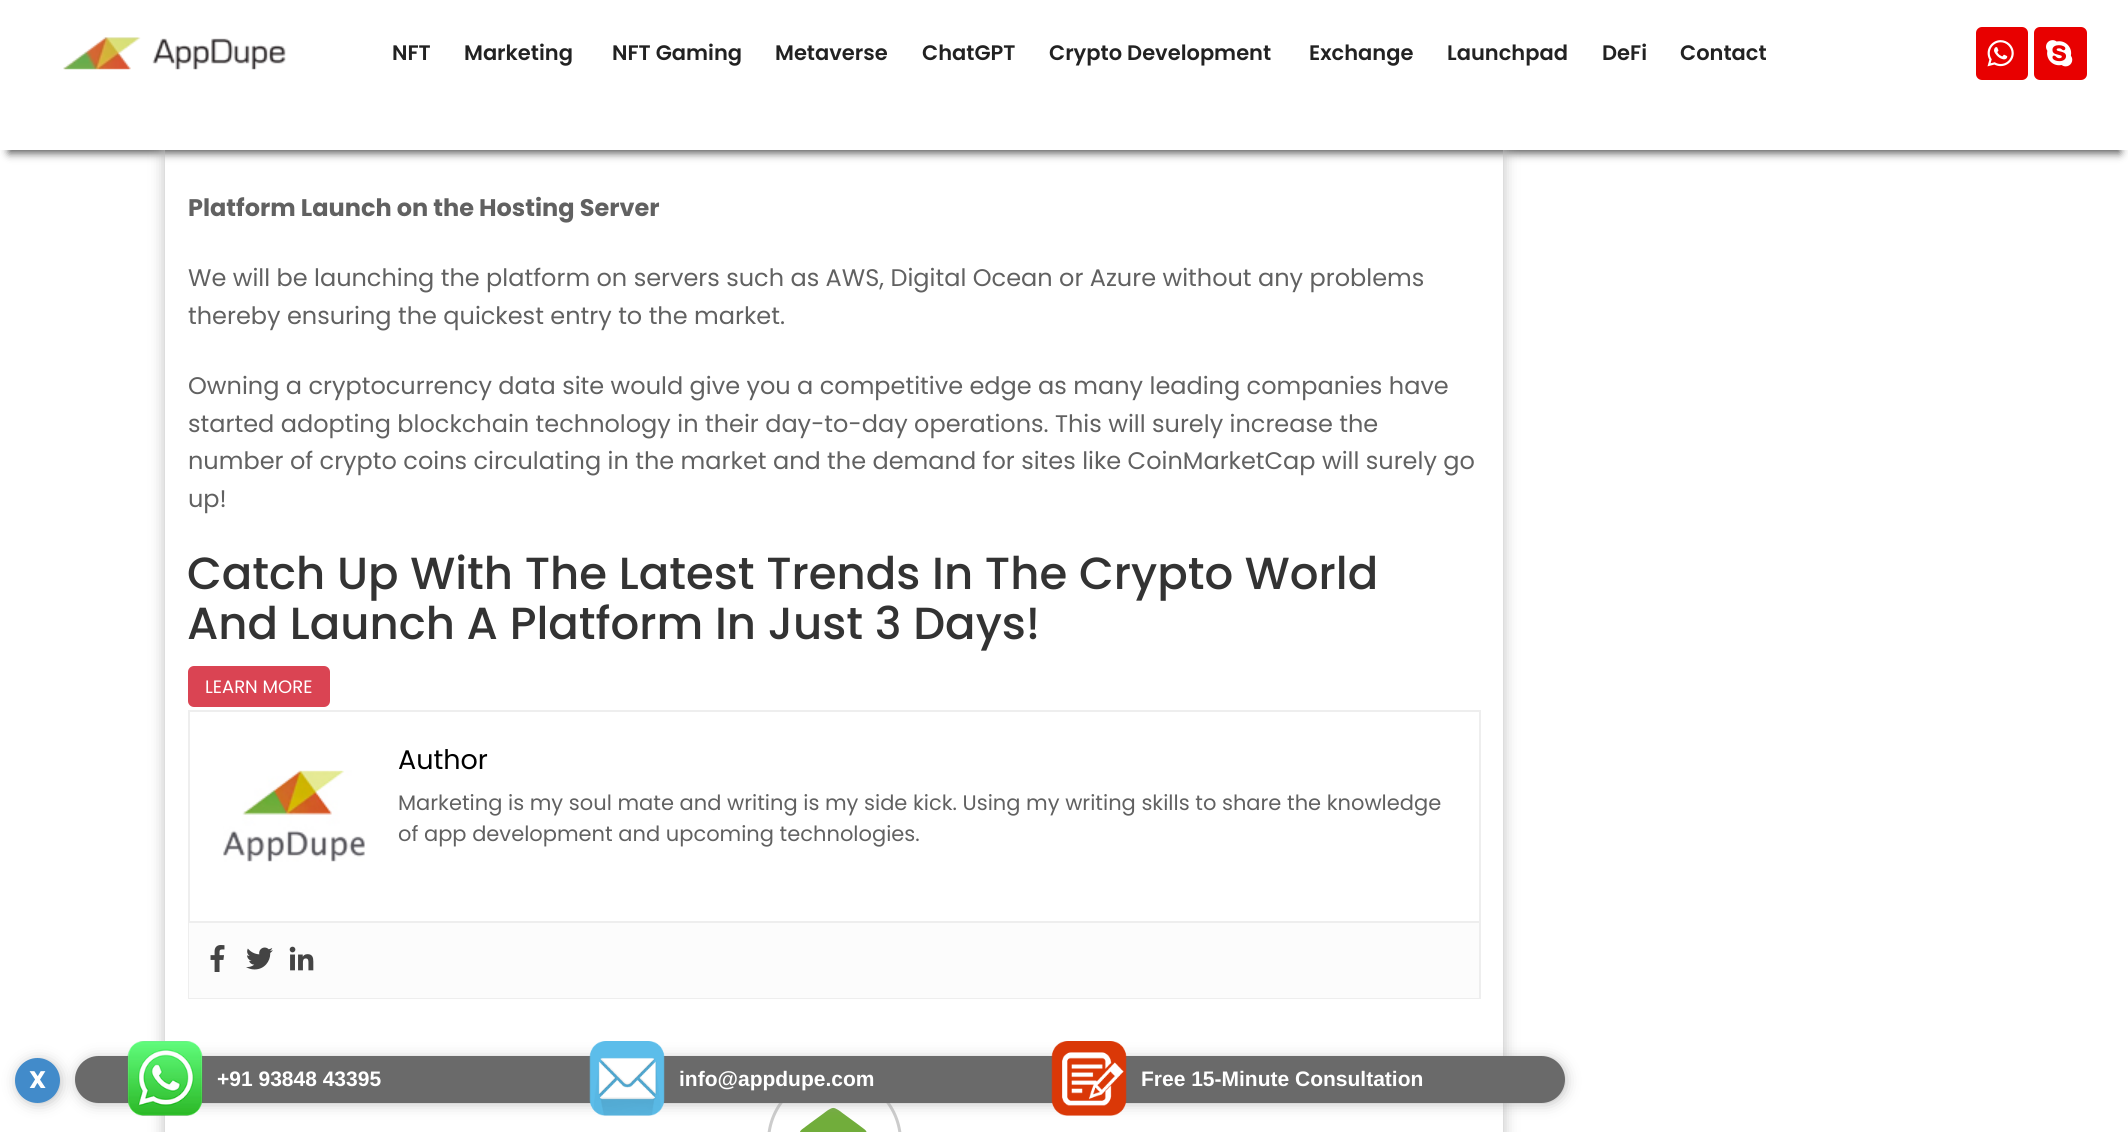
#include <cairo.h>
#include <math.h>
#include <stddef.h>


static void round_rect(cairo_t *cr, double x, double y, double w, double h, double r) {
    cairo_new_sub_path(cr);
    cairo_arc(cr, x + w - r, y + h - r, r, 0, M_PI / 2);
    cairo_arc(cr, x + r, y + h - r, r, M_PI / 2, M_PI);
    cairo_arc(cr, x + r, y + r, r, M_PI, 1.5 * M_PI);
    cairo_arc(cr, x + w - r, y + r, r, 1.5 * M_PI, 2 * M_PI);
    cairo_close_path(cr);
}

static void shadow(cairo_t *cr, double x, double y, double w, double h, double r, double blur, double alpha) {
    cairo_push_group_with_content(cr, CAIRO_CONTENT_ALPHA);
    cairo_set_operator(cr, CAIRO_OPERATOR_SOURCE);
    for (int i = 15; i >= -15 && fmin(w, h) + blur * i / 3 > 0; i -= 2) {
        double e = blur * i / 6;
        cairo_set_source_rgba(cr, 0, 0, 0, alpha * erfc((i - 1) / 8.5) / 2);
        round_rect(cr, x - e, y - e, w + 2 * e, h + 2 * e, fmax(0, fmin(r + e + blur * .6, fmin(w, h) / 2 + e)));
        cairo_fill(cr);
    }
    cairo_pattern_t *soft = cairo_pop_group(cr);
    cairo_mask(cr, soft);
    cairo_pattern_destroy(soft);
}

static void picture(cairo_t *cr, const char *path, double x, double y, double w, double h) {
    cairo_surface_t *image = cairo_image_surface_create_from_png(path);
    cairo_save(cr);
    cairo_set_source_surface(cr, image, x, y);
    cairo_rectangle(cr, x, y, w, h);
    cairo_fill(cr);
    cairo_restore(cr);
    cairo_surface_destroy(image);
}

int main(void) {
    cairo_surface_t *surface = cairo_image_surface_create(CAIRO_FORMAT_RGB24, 2128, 1132);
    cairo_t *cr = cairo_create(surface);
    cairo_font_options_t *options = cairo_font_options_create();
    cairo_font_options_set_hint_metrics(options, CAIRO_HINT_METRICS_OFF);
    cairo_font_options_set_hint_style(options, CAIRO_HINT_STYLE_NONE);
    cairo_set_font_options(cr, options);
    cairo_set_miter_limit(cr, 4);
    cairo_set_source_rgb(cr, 1, 1, 1);
    cairo_paint(cr);
    cairo_set_source_rgb(cr, 0.333, 0.333, 0.333);
    shadow(cr, 9, 21, 2111, 132, 0, 4.5, 1);
    cairo_save(cr);
    cairo_set_fill_rule(cr, CAIRO_FILL_RULE_EVEN_ODD);
    cairo_new_path(cr);
    cairo_move_to(cr, 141, 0);
    cairo_line_to(cr, 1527, 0);
    cairo_line_to(cr, 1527, 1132);
    cairo_line_to(cr, 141, 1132);
    cairo_close_path(cr);
    cairo_move_to(cr, 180, -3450);
    cairo_line_to(cr, 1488, -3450);
    cairo_curve_to(cr, 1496.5, -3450, 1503, -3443.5, 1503, -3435);
    cairo_line_to(cr, 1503, 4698);
    cairo_line_to(cr, 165, 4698);
    cairo_line_to(cr, 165, -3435);
    cairo_curve_to(cr, 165, -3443.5, 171.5, -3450, 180, -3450);
    cairo_close_path(cr);
    cairo_clip(cr);
    cairo_set_source_rgb(cr, 0.733, 0.733, 0.733);
    shadow(cr, 165, -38, 1338, 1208, 15, 7.5, 1);
    cairo_restore(cr);
    cairo_set_source_rgb(cr, 1, 1, 1);
    cairo_rectangle(cr, 0, 0, 2128, 150);
    cairo_fill(cr);
    picture(cr, "img1.png", 63, 37, 223, 33);
    cairo_select_font_face(cr, "Poppins SemiBold", CAIRO_FONT_SLANT_NORMAL, CAIRO_FONT_WEIGHT_NORMAL);
    cairo_set_font_size(cr, 21);
    cairo_set_source_rgb(cr, 0.133, 0.133, 0.133);
    cairo_move_to(cr, 392, 60);
    cairo_show_text(cr, "NFT");
    cairo_move_to(cr, 464, 60);
    cairo_show_text(cr, "Marketing");
    cairo_move_to(cr, 612, 60);
    cairo_show_text(cr, "NFT Gaming");
    cairo_move_to(cr, 775, 60);
    cairo_show_text(cr, "Metaverse");
    cairo_move_to(cr, 922, 60);
    cairo_show_text(cr, "ChatGPT");
    cairo_move_to(cr, 1049, 60);
    cairo_show_text(cr, "Crypto Development");
    cairo_move_to(cr, 1309, 60);
    cairo_show_text(cr, "Exchange");
    cairo_move_to(cr, 1447, 60);
    cairo_show_text(cr, "Launchpad");
    cairo_move_to(cr, 1602, 60);
    cairo_show_text(cr, "DeFi");
    cairo_move_to(cr, 1680, 60);
    cairo_show_text(cr, "Contact");
    cairo_set_source_rgb(cr, 0.91, 0, 0);
    round_rect(cr, 1976, 27, 52, 53, 6);
    cairo_fill(cr);
    picture(cr, "img2.png", 1987, 40, 27, 27);
    round_rect(cr, 2034, 27, 53, 53, 6);
    cairo_fill(cr);
    picture(cr, "img3.png", 2046, 40, 27, 27);
    cairo_select_font_face(cr, "Poppins", CAIRO_FONT_SLANT_NORMAL, CAIRO_FONT_WEIGHT_BOLD);
    cairo_set_font_size(cr, 24);
    cairo_set_source_rgb(cr, 0.38, 0.38, 0.38);
    cairo_move_to(cr, 188, 216);
    cairo_show_text(cr, "Platform Launch on the Hosting Server");
    cairo_select_font_face(cr, "Poppins", CAIRO_FONT_SLANT_NORMAL, CAIRO_FONT_WEIGHT_NORMAL);
    cairo_move_to(cr, 188, 286);
    cairo_show_text(cr, "We will be launching the platform on servers such as AWS, Digital Ocean or Azure without any problems");
    cairo_move_to(cr, 188, 324);
    cairo_show_text(cr, "thereby ensuring the quickest entry to the market.");
    cairo_move_to(cr, 188, 394);
    cairo_show_text(cr, "Owning a cryptocurrency data site would give you a competitive edge as many leading companies have");
    cairo_move_to(cr, 188, 432);
    cairo_show_text(cr, "started adopting blockchain technology in their day-to-day operations. This will surely increase the");
    cairo_move_to(cr, 188, 469);
    cairo_show_text(cr, "number of crypto coins circulating in the market and the demand for sites like CoinMarketCap will surely go");
    cairo_move_to(cr, 188, 507);
    cairo_show_text(cr, "up!");
    cairo_select_font_face(cr, "Poppins Medium", CAIRO_FONT_SLANT_NORMAL, CAIRO_FONT_WEIGHT_NORMAL);
    cairo_set_font_size(cr, 45);
    cairo_set_source_rgb(cr, 0.2, 0.2, 0.2);
    cairo_move_to(cr, 187, 589);
    cairo_show_text(cr, "Catch Up With The Latest Trends In The Crypto World");
    cairo_move_to(cr, 187, 639);
    cairo_show_text(cr, "And Launch A Platform In Just 3 Days!");
    cairo_set_source_rgb(cr, 0.855, 0.267, 0.325);
    round_rect(cr, 188, 666, 142, 41, 6);
    cairo_fill(cr);
    cairo_select_font_face(cr, "Poppins", CAIRO_FONT_SLANT_NORMAL, CAIRO_FONT_WEIGHT_NORMAL);
    cairo_set_font_size(cr, 18);
    cairo_set_source_rgb(cr, 1, 1, 1);
    cairo_move_to(cr, 205, 693);
    cairo_show_text(cr, "LEARN MORE");
    cairo_rectangle(cr, 189, 711, 1291, 287);
    cairo_set_source_rgb(cr, 0.933, 0.933, 0.933);
    cairo_stroke(cr);
    cairo_set_font_size(cr, 27);
    cairo_set_source_rgb(cr, 0, 0, 0);
    cairo_move_to(cr, 398, 769);
    cairo_show_text(cr, "Author");
    picture(cr, "img4.png", 223, 770, 142, 92);
    cairo_set_font_size(cr, 21);
    cairo_set_source_rgb(cr, 0.38, 0.38, 0.38);
    cairo_move_to(cr, 398, 810);
    cairo_show_text(cr, "Marketing is my soul mate and writing is my side kick. Using my writing skills to share the knowledge");
    cairo_move_to(cr, 398, 841);
    cairo_show_text(cr, "of app development and upcoming technologies.");
    cairo_set_source_rgb(cr, 0.988, 0.988, 0.988);
    cairo_rectangle(cr, 189, 923, 1290, 75);
    cairo_fill(cr);
    cairo_set_source_rgb(cr, 0.933, 0.933, 0.933);
    cairo_rectangle(cr, 189, 921, 1290, 2);
    cairo_fill(cr);
    picture(cr, "img5.png", 210, 945, 15, 27);
    picture(cr, "img6.png", 246, 947, 27, 23);
    picture(cr, "img7.png", 289, 946, 25, 25);
    round_rect(cr, 768.5, 1075.5, 132, 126, 66);
    cairo_set_source_rgb(cr, 0.8, 0.8, 0.8);
    cairo_set_line_width(cr, 3);
    cairo_stroke(cr);
    picture(cr, "img8.png", 800, 1107, 67, 25);
    cairo_set_source_rgb(cr, 0.6, 0.6, 0.6);
    shadow(cr, 21, 1064, 36, 36, 18, 8, 1);
    cairo_set_source_rgb(cr, 0.259, 0.545, 0.792);
    cairo_arc(cr, 37.5, 1080.5, 22.5, 0, 2 * M_PI);
    cairo_fill(cr);
    cairo_select_font_face(cr, "Poppins", CAIRO_FONT_SLANT_NORMAL, CAIRO_FONT_WEIGHT_BOLD);
    cairo_set_font_size(cr, 24);
    cairo_set_source_rgb(cr, 1, 1, 1);
    cairo_move_to(cr, 29, 1088);
    cairo_show_text(cr, "X");
    cairo_set_source_rgb(cr, 0.6, 0.6, 0.6);
    shadow(cr, 81, 1062, 1481, 38, 19, 8, 1);
    cairo_set_source_rgb(cr, 0.416, 0.416, 0.416);
    round_rect(cr, 75, 1056, 1490, 47, 23.5);
    cairo_fill(cr);
    picture(cr, "img9.png", 127, 1041, 76, 75);
    cairo_select_font_face(cr, "Liberation Sans", CAIRO_FONT_SLANT_NORMAL, CAIRO_FONT_WEIGHT_BOLD);
    cairo_set_font_size(cr, 21);
    cairo_set_source_rgb(cr, 1, 1, 1);
    cairo_move_to(cr, 217, 1086);
    cairo_show_text(cr, "+91 93848 43395");
    picture(cr, "img10.png", 589, 1041, 76, 75);
    cairo_move_to(cr, 679, 1086);
    cairo_show_text(cr, "info@appdupe.com");
    picture(cr, "img11.png", 1051, 1041, 76, 75);
    cairo_move_to(cr, 1141, 1086);
    cairo_show_text(cr, "Free 15-Minute Consultation");
    cairo_surface_write_to_png(surface, "page.png");
    cairo_font_options_destroy(options);
    cairo_destroy(cr);
    cairo_surface_destroy(surface);
    return 0;
}
